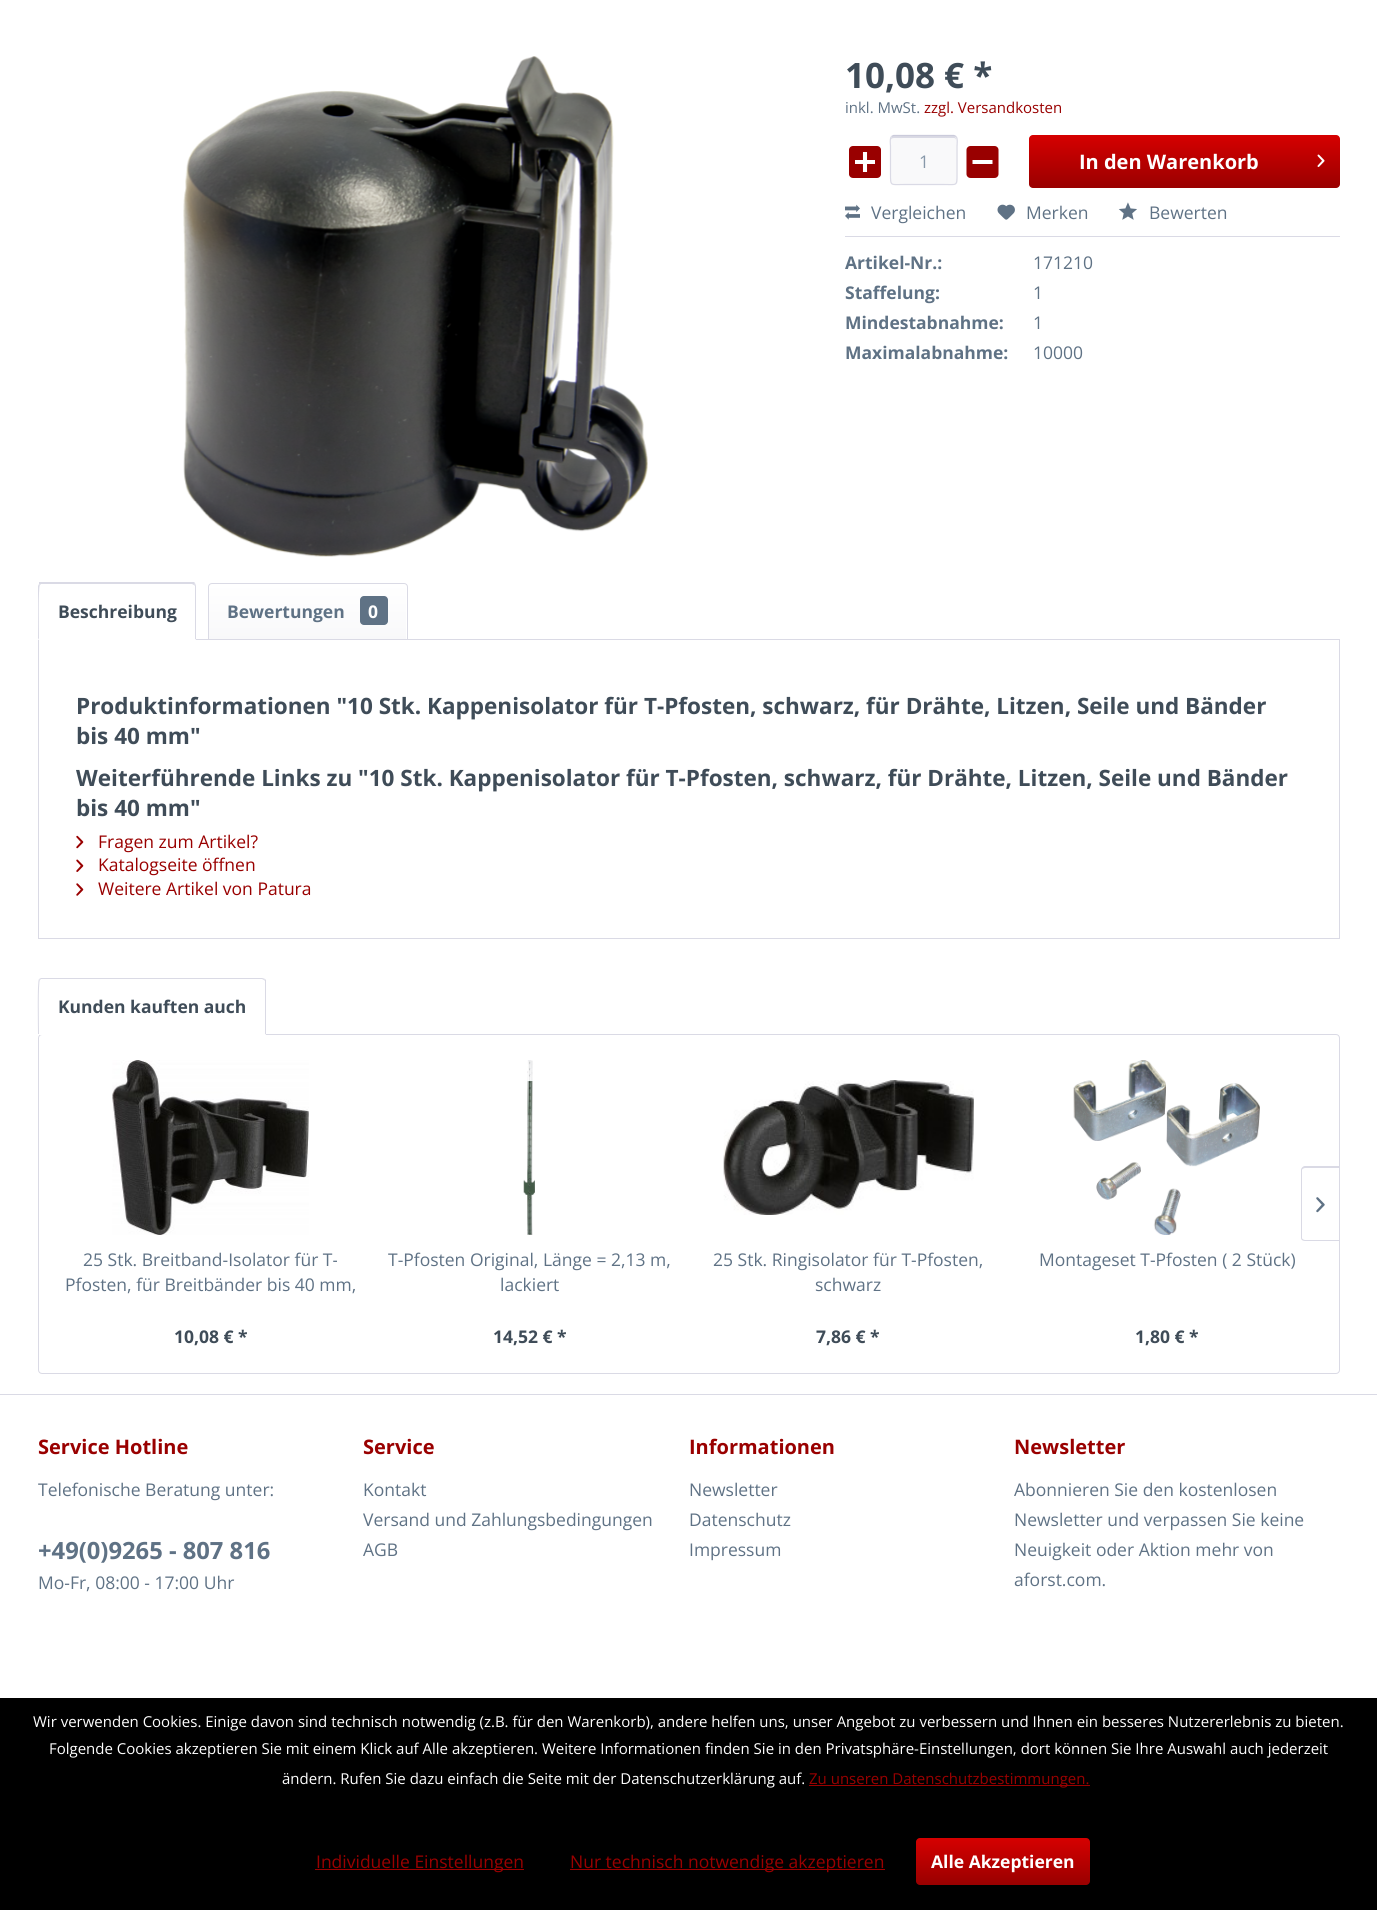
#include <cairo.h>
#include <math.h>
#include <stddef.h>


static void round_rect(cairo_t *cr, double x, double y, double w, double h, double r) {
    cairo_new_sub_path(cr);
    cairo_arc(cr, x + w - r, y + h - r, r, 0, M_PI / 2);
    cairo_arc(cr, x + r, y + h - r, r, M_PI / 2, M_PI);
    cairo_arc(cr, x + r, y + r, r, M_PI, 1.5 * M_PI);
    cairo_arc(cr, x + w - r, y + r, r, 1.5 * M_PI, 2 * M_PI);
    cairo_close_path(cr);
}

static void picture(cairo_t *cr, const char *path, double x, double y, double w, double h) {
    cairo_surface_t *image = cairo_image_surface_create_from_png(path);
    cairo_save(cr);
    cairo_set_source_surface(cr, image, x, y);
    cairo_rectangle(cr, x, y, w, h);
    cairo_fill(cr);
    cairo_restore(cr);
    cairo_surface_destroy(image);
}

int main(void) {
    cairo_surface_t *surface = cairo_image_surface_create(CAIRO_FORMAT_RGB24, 1377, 1910);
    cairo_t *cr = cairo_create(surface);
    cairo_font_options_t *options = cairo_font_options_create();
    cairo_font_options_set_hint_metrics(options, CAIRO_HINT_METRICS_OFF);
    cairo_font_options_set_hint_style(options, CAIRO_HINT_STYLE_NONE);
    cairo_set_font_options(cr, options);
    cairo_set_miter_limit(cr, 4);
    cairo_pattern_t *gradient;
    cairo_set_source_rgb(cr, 1, 1, 1);
    cairo_paint(cr);
    picture(cr, "img1.png", 183, 56, 465, 501);
    cairo_select_font_face(cr, "Open Sans", CAIRO_FONT_SLANT_NORMAL, CAIRO_FONT_WEIGHT_BOLD);
    cairo_set_font_size(cr, 35);
    cairo_set_source_rgb(cr, 0.247, 0.298, 0.345);
    cairo_move_to(cr, 845, 88);
    cairo_show_text(cr, "10,08 € *");
    cairo_select_font_face(cr, "Open Sans", CAIRO_FONT_SLANT_NORMAL, CAIRO_FONT_WEIGHT_NORMAL);
    cairo_set_font_size(cr, 15);
    cairo_set_source_rgb(cr, 0.373, 0.447, 0.522);
    cairo_move_to(cr, 845, 113);
    cairo_show_text(cr, "inkl. MwSt.");
    cairo_set_source_rgb(cr, 0.6, 0, 0);
    cairo_move_to(cr, 924, 113);
    cairo_show_text(cr, "zzgl. Versandkosten");
    picture(cr, "img2.png", 849, 146, 32, 32);
    cairo_set_source_rgb(cr, 0.973, 0.973, 0.98);
    round_rect(cr, 890, 135, 68, 50, 4);
    cairo_fill(cr);
    cairo_set_source_rgb(cr, 0.855, 0.855, 0.898);
    cairo_new_path(cr);
    cairo_move_to(cr, 894, 138);
    cairo_line_to(cr, 954, 138);
    cairo_curve_to(cr, 955, 138, 956, 139, 956, 140);
    cairo_curve_to(cr, 956, 133, 949, 136, 944, 136);
    cairo_line_to(cr, 904, 136);
    cairo_curve_to(cr, 898, 136, 891, 133, 891, 140);
    cairo_curve_to(cr, 891, 139, 892, 138, 894, 138);
    cairo_close_path(cr);
    cairo_fill(cr);
    cairo_new_path(cr);
    cairo_move_to(cr, 891.5, 136.5);
    cairo_line_to(cr, 893.5, 135.5);
    cairo_line_to(cr, 954, 135.5);
    cairo_line_to(cr, 956, 136.5);
    cairo_set_source_rgb(cr, 0.796, 0.796, 0.859);
    cairo_set_line_width(cr, 1.2);
    cairo_stroke(cr);
    cairo_new_path(cr);
    cairo_move_to(cr, 956, 136.5);
    cairo_curve_to(cr, 958, 138.5, 957, 145, 957, 146);
    cairo_line_to(cr, 957, 174);
    cairo_curve_to(cr, 957, 186.5, 957, 184.5, 944, 184.5);
    cairo_line_to(cr, 904, 184.5);
    cairo_curve_to(cr, 890.5, 184.5, 890.5, 186.5, 890.5, 174);
    cairo_line_to(cr, 890.5, 146);
    cairo_curve_to(cr, 890.5, 145, 889.5, 138.5, 891.5, 136.5);
    cairo_set_source_rgb(cr, 0.855, 0.855, 0.898);
    cairo_stroke(cr);
    cairo_set_font_size(cr, 17.5);
    cairo_set_source_rgb(cr, 0.529, 0.596, 0.663);
    cairo_move_to(cr, 919, 168);
    cairo_show_text(cr, "1");
    picture(cr, "img3.png", 966, 146, 33, 32);
    gradient = cairo_pattern_create_linear(1184, 135, 1184, 188);
    cairo_pattern_add_color_stop_rgba(gradient, 0, 0.839, 0, 0, 1);
    cairo_pattern_add_color_stop_rgba(gradient, 1, 0.6, 0, 0, 1);
    cairo_set_source(cr, gradient);
    cairo_pattern_destroy(gradient);
    round_rect(cr, 1029, 135, 311, 53, 4);
    cairo_fill(cr);
    cairo_select_font_face(cr, "Open Sans", CAIRO_FONT_SLANT_NORMAL, CAIRO_FONT_WEIGHT_BOLD);
    cairo_set_font_size(cr, 20);
    cairo_set_source_rgb(cr, 1, 1, 1);
    cairo_move_to(cr, 1079, 169);
    cairo_show_text(cr, "In den Warenkorb");
    picture(cr, "img4.png", 1317, 154, 8, 13);
    cairo_set_source_rgb(cr, 0.855, 0.855, 0.898);
    cairo_rectangle(cr, 845, 236, 495, 1);
    cairo_fill(cr);
    picture(cr, "img5.png", 845, 204, 15, 16);
    cairo_select_font_face(cr, "Open Sans", CAIRO_FONT_SLANT_NORMAL, CAIRO_FONT_WEIGHT_NORMAL);
    cairo_set_font_size(cr, 17.5);
    cairo_set_source_rgb(cr, 0.373, 0.447, 0.522);
    cairo_move_to(cr, 871, 219);
    cairo_show_text(cr, "Vergleichen");
    picture(cr, "img6.png", 997, 204, 18, 16);
    cairo_move_to(cr, 1026, 219);
    cairo_show_text(cr, "Merken");
    picture(cr, "img7.png", 1118, 202, 19, 18);
    cairo_move_to(cr, 1149, 219);
    cairo_show_text(cr, "Bewerten");
    cairo_select_font_face(cr, "Open Sans", CAIRO_FONT_SLANT_NORMAL, CAIRO_FONT_WEIGHT_BOLD);
    cairo_move_to(cr, 845, 269);
    cairo_show_text(cr, "Artikel-Nr.:");
    cairo_select_font_face(cr, "Open Sans", CAIRO_FONT_SLANT_NORMAL, CAIRO_FONT_WEIGHT_NORMAL);
    cairo_move_to(cr, 1033, 269);
    cairo_show_text(cr, "171210");
    cairo_select_font_face(cr, "Open Sans", CAIRO_FONT_SLANT_NORMAL, CAIRO_FONT_WEIGHT_BOLD);
    cairo_move_to(cr, 845, 299);
    cairo_show_text(cr, "Staffelung:");
    cairo_select_font_face(cr, "Open Sans", CAIRO_FONT_SLANT_NORMAL, CAIRO_FONT_WEIGHT_NORMAL);
    cairo_move_to(cr, 1033, 299);
    cairo_show_text(cr, "1");
    cairo_select_font_face(cr, "Open Sans", CAIRO_FONT_SLANT_NORMAL, CAIRO_FONT_WEIGHT_BOLD);
    cairo_move_to(cr, 845, 329);
    cairo_show_text(cr, "Mindestabnahme:");
    cairo_select_font_face(cr, "Open Sans", CAIRO_FONT_SLANT_NORMAL, CAIRO_FONT_WEIGHT_NORMAL);
    cairo_move_to(cr, 1033, 329);
    cairo_show_text(cr, "1");
    cairo_select_font_face(cr, "Open Sans", CAIRO_FONT_SLANT_NORMAL, CAIRO_FONT_WEIGHT_BOLD);
    cairo_move_to(cr, 845, 359);
    cairo_show_text(cr, "Maximalabnahme:");
    cairo_select_font_face(cr, "Open Sans", CAIRO_FONT_SLANT_NORMAL, CAIRO_FONT_WEIGHT_NORMAL);
    cairo_move_to(cr, 1033, 359);
    cairo_show_text(cr, "10000");
    cairo_rectangle(cr, 38.5, 639.5, 1301, 299);
    cairo_set_source_rgb(cr, 0.855, 0.855, 0.898);
    cairo_set_line_width(cr, 1);
    cairo_stroke(cr);
    cairo_set_source_rgb(cr, 1, 1, 1);
    cairo_new_path(cr);
    cairo_move_to(cr, 42, 583);
    cairo_line_to(cr, 192, 583);
    cairo_curve_to(cr, 194, 583, 196, 585, 196, 587);
    cairo_line_to(cr, 196, 640);
    cairo_line_to(cr, 38, 640);
    cairo_line_to(cr, 38, 587);
    cairo_curve_to(cr, 38, 585, 40, 583, 42, 583);
    cairo_close_path(cr);
    cairo_fill(cr);
    cairo_set_source_rgb(cr, 0.855, 0.855, 0.898);
    cairo_new_path(cr);
    cairo_move_to(cr, 41, 584);
    cairo_line_to(cr, 40, 585);
    cairo_line_to(cr, 39, 584);
    cairo_line_to(cr, 39, 582);
    cairo_line_to(cr, 194, 582);
    cairo_line_to(cr, 195, 583);
    cairo_line_to(cr, 194, 585);
    cairo_line_to(cr, 192, 584);
    cairo_close_path(cr);
    cairo_fill(cr);
    cairo_new_path(cr);
    cairo_move_to(cr, 195, 583);
    cairo_line_to(cr, 196, 586);
    cairo_line_to(cr, 196, 640);
    cairo_line_to(cr, 195, 639);
    cairo_line_to(cr, 195, 586);
    cairo_line_to(cr, 194, 585);
    cairo_close_path(cr);
    cairo_fill(cr);
    cairo_set_source_rgb(cr, 1, 1, 1);
    cairo_new_path(cr);
    cairo_move_to(cr, 38, 640);
    cairo_line_to(cr, 196, 640);
    cairo_line_to(cr, 195, 639);
    cairo_line_to(cr, 39, 639);
    cairo_line_to(cr, 39, 638);
    cairo_close_path(cr);
    cairo_fill(cr);
    cairo_set_source_rgb(cr, 0.855, 0.855, 0.898);
    cairo_new_path(cr);
    cairo_move_to(cr, 38, 640);
    cairo_line_to(cr, 38, 586);
    cairo_line_to(cr, 39, 584);
    cairo_line_to(cr, 40, 585);
    cairo_curve_to(cr, 38, 586, 39, 633, 39, 638);
    cairo_close_path(cr);
    cairo_fill(cr);
    cairo_select_font_face(cr, "Open Sans", CAIRO_FONT_SLANT_NORMAL, CAIRO_FONT_WEIGHT_BOLD);
    cairo_set_source_rgb(cr, 0.247, 0.298, 0.345);
    cairo_move_to(cr, 58, 618);
    cairo_show_text(cr, "Beschreibung");
    gradient = cairo_pattern_create_linear(308, 584, 308, 639);
    cairo_pattern_add_color_stop_rgba(gradient, 0, 1, 1, 1, 1);
    cairo_pattern_add_color_stop_rgba(gradient, 1, 0.973, 0.973, 0.98, 1);
    cairo_set_source(cr, gradient);
    cairo_pattern_destroy(gradient);
    cairo_new_path(cr);
    cairo_move_to(cr, 211.5, 584);
    cairo_line_to(cr, 403.5, 584);
    cairo_curve_to(cr, 405, 584, 406, 585, 406, 586.5);
    cairo_line_to(cr, 406, 639);
    cairo_line_to(cr, 209, 639);
    cairo_line_to(cr, 209, 586.5);
    cairo_curve_to(cr, 209, 585, 210, 584, 211.5, 584);
    cairo_close_path(cr);
    cairo_fill(cr);
    cairo_new_path(cr);
    cairo_move_to(cr, 212, 583.5);
    cairo_line_to(cr, 404, 583.5);
    cairo_curve_to(cr, 406, 583.5, 407.5, 585, 407.5, 587);
    cairo_line_to(cr, 407.5, 639.5);
    cairo_line_to(cr, 208.5, 639.5);
    cairo_line_to(cr, 208.5, 587);
    cairo_curve_to(cr, 208.5, 585, 210, 583.5, 212, 583.5);
    cairo_close_path(cr);
    cairo_set_source_rgb(cr, 0.855, 0.855, 0.898);
    cairo_stroke(cr);
    cairo_set_source_rgb(cr, 0.373, 0.447, 0.522);
    cairo_move_to(cr, 227, 618);
    cairo_show_text(cr, "Bewertungen");
    round_rect(cr, 360, 596, 28, 29, 4);
    cairo_fill(cr);
    cairo_set_source_rgb(cr, 1, 1, 1);
    cairo_move_to(cr, 368, 618);
    cairo_show_text(cr, "0");
    cairo_set_font_size(cr, 22.5);
    cairo_set_source_rgb(cr, 0.247, 0.298, 0.345);
    cairo_move_to(cr, 76, 714);
    cairo_show_text(cr, "Produktinformationen \"10 Stk. Kappenisolator für T-Pfosten, schwarz, für Drähte, Litzen, Seile und Bänder");
    cairo_move_to(cr, 76, 744);
    cairo_show_text(cr, "bis 40 mm\"");
    cairo_move_to(cr, 76, 786);
    cairo_show_text(cr, "Weiterführende Links zu \"10 Stk. Kappenisolator für T-Pfosten, schwarz, für Drähte, Litzen, Seile und Bänder");
    cairo_move_to(cr, 76, 816);
    cairo_show_text(cr, "bis 40 mm\"");
    picture(cr, "img8.png", 76, 835, 8, 14);
    cairo_select_font_face(cr, "Open Sans", CAIRO_FONT_SLANT_NORMAL, CAIRO_FONT_WEIGHT_NORMAL);
    cairo_set_font_size(cr, 17.5);
    cairo_set_source_rgb(cr, 0.6, 0, 0);
    cairo_move_to(cr, 98, 848);
    cairo_show_text(cr, "Fragen zum Artikel?");
    picture(cr, "img9.png", 76, 859, 8, 13);
    cairo_move_to(cr, 98, 871);
    cairo_show_text(cr, "Katalogseite öffnen");
    picture(cr, "img10.png", 76, 883, 8, 13);
    cairo_move_to(cr, 98, 895);
    cairo_show_text(cr, "Weitere Artikel von Patura");
    round_rect(cr, 38.5, 1034.5, 1301, 339, 3.5);
    cairo_set_source_rgb(cr, 0.855, 0.855, 0.898);
    cairo_stroke(cr);
    cairo_set_source_rgb(cr, 1, 1, 1);
    cairo_new_path(cr);
    cairo_move_to(cr, 42, 978);
    cairo_line_to(cr, 262, 978);
    cairo_curve_to(cr, 264, 978, 266, 980, 266, 982);
    cairo_line_to(cr, 266, 1035);
    cairo_line_to(cr, 38, 1035);
    cairo_line_to(cr, 38, 982);
    cairo_curve_to(cr, 38, 980, 40, 978, 42, 978);
    cairo_close_path(cr);
    cairo_fill(cr);
    cairo_set_source_rgb(cr, 0.855, 0.855, 0.898);
    cairo_new_path(cr);
    cairo_move_to(cr, 41, 978);
    cairo_line_to(cr, 39, 979);
    cairo_line_to(cr, 40, 980);
    cairo_line_to(cr, 41, 979);
    cairo_line_to(cr, 262, 979);
    cairo_line_to(cr, 264, 980);
    cairo_line_to(cr, 265, 979);
    cairo_line_to(cr, 262, 978);
    cairo_close_path(cr);
    cairo_fill(cr);
    cairo_new_path(cr);
    cairo_move_to(cr, 266, 1035);
    cairo_line_to(cr, 266, 980);
    cairo_line_to(cr, 265, 979);
    cairo_line_to(cr, 264, 980);
    cairo_line_to(cr, 265, 981);
    cairo_line_to(cr, 265, 1034);
    cairo_close_path(cr);
    cairo_fill(cr);
    cairo_set_source_rgb(cr, 1, 1, 1);
    cairo_new_path(cr);
    cairo_move_to(cr, 38, 1035);
    cairo_line_to(cr, 266, 1035);
    cairo_line_to(cr, 265, 1034);
    cairo_line_to(cr, 39, 1034);
    cairo_close_path(cr);
    cairo_fill(cr);
    cairo_set_source_rgb(cr, 0.855, 0.855, 0.898);
    cairo_new_path(cr);
    cairo_move_to(cr, 39, 979);
    cairo_curve_to(cr, 37, 981, 38, 1028, 38, 1034);
    cairo_line_to(cr, 39, 1034);
    cairo_curve_to(cr, 39, 1028, 38, 981, 40, 980);
    cairo_close_path(cr);
    cairo_fill(cr);
    cairo_select_font_face(cr, "Open Sans", CAIRO_FONT_SLANT_NORMAL, CAIRO_FONT_WEIGHT_BOLD);
    cairo_set_source_rgb(cr, 0.247, 0.298, 0.345);
    cairo_move_to(cr, 58, 1013);
    cairo_show_text(cr, "Kunden kauften auch");
    cairo_set_source_rgb(cr, 0.855, 0.855, 0.898);
    cairo_set_fill_rule(cr, CAIRO_FILL_RULE_EVEN_ODD);
    cairo_new_path(cr);
    cairo_move_to(cr, 1305, 1166);
    cairo_line_to(cr, 1339, 1166);
    cairo_line_to(cr, 1339, 1241);
    cairo_line_to(cr, 1305, 1241);
    cairo_curve_to(cr, 1303, 1241, 1301, 1240, 1301, 1238);
    cairo_line_to(cr, 1301, 1170);
    cairo_curve_to(cr, 1301, 1168, 1303, 1166, 1305, 1166);
    cairo_close_path(cr);
    cairo_move_to(cr, 1305, 1168);
    cairo_line_to(cr, 1339, 1168);
    cairo_line_to(cr, 1339, 1240);
    cairo_line_to(cr, 1305, 1240);
    cairo_curve_to(cr, 1304, 1240, 1302, 1239, 1302, 1238);
    cairo_line_to(cr, 1302, 1170);
    cairo_curve_to(cr, 1302, 1169, 1304, 1168, 1305, 1168);
    cairo_close_path(cr);
    cairo_fill(cr);
    picture(cr, "img11.png", 1316, 1197, 9, 16);
    picture(cr, "img12.png", 112, 1060, 197, 175);
    cairo_select_font_face(cr, "Open Sans", CAIRO_FONT_SLANT_NORMAL, CAIRO_FONT_WEIGHT_NORMAL);
    cairo_set_source_rgb(cr, 0.373, 0.447, 0.522);
    cairo_move_to(cr, 83, 1266);
    cairo_show_text(cr, "25 Stk. Breitband-Isolator für T-");
    cairo_move_to(cr, 65, 1291);
    cairo_show_text(cr, "Pfosten, für Breitbänder bis 40 mm,");
    cairo_select_font_face(cr, "Open Sans", CAIRO_FONT_SLANT_NORMAL, CAIRO_FONT_WEIGHT_BOLD);
    cairo_set_source_rgb(cr, 0.247, 0.298, 0.345);
    cairo_move_to(cr, 174, 1343);
    cairo_show_text(cr, "10,08 € *");
    picture(cr, "img13.png", 523, 1060, 12, 175);
    cairo_select_font_face(cr, "Open Sans", CAIRO_FONT_SLANT_NORMAL, CAIRO_FONT_WEIGHT_NORMAL);
    cairo_set_source_rgb(cr, 0.373, 0.447, 0.522);
    cairo_move_to(cr, 388, 1266);
    cairo_show_text(cr, "T-Pfosten Original, Länge = 2,13 m,");
    cairo_move_to(cr, 500, 1291);
    cairo_show_text(cr, "lackiert");
    cairo_select_font_face(cr, "Open Sans", CAIRO_FONT_SLANT_NORMAL, CAIRO_FONT_WEIGHT_BOLD);
    cairo_set_source_rgb(cr, 0.247, 0.298, 0.345);
    cairo_move_to(cr, 493, 1343);
    cairo_show_text(cr, "14,52 € *");
    picture(cr, "img14.png", 723, 1080, 251, 135);
    cairo_select_font_face(cr, "Open Sans", CAIRO_FONT_SLANT_NORMAL, CAIRO_FONT_WEIGHT_NORMAL);
    cairo_set_source_rgb(cr, 0.373, 0.447, 0.522);
    cairo_move_to(cr, 713, 1266);
    cairo_show_text(cr, "25 Stk. Ringisolator für T-Pfosten,");
    cairo_move_to(cr, 815, 1291);
    cairo_show_text(cr, "schwarz");
    cairo_select_font_face(cr, "Open Sans", CAIRO_FONT_SLANT_NORMAL, CAIRO_FONT_WEIGHT_BOLD);
    cairo_set_source_rgb(cr, 0.247, 0.298, 0.345);
    cairo_move_to(cr, 816, 1343);
    cairo_show_text(cr, "7,86 € *");
    picture(cr, "img15.png", 1073, 1060, 187, 175);
    cairo_select_font_face(cr, "Open Sans", CAIRO_FONT_SLANT_NORMAL, CAIRO_FONT_WEIGHT_NORMAL);
    cairo_set_source_rgb(cr, 0.373, 0.447, 0.522);
    cairo_move_to(cr, 1039, 1266);
    cairo_show_text(cr, "Montageset T-Pfosten ( 2 Stück)");
    cairo_select_font_face(cr, "Open Sans", CAIRO_FONT_SLANT_NORMAL, CAIRO_FONT_WEIGHT_BOLD);
    cairo_set_source_rgb(cr, 0.247, 0.298, 0.345);
    cairo_move_to(cr, 1135, 1343);
    cairo_show_text(cr, "1,80 € *");
    cairo_set_source_rgb(cr, 0.855, 0.855, 0.898);
    cairo_rectangle(cr, 0, 1394, 1377, 1);
    cairo_fill(cr);
    cairo_set_font_size(cr, 20);
    cairo_set_source_rgb(cr, 0.6, 0, 0);
    cairo_move_to(cr, 38, 1454);
    cairo_show_text(cr, "Service Hotline");
    cairo_select_font_face(cr, "Open Sans", CAIRO_FONT_SLANT_NORMAL, CAIRO_FONT_WEIGHT_NORMAL);
    cairo_set_font_size(cr, 17.5);
    cairo_set_source_rgb(cr, 0.373, 0.447, 0.522);
    cairo_move_to(cr, 38, 1496);
    cairo_show_text(cr, "Telefonische Beratung unter:");
    cairo_select_font_face(cr, "Open Sans", CAIRO_FONT_SLANT_NORMAL, CAIRO_FONT_WEIGHT_BOLD);
    cairo_set_font_size(cr, 23.75);
    cairo_move_to(cr, 38, 1559);
    cairo_show_text(cr, "+49(0)9265 - 807 816");
    cairo_select_font_face(cr, "Open Sans", CAIRO_FONT_SLANT_NORMAL, CAIRO_FONT_WEIGHT_NORMAL);
    cairo_set_font_size(cr, 17.5);
    cairo_move_to(cr, 38, 1589);
    cairo_show_text(cr, "Mo-Fr, 08:00 - 17:00 Uhr");
    cairo_select_font_face(cr, "Open Sans", CAIRO_FONT_SLANT_NORMAL, CAIRO_FONT_WEIGHT_BOLD);
    cairo_set_font_size(cr, 20);
    cairo_set_source_rgb(cr, 0.6, 0, 0);
    cairo_move_to(cr, 363, 1454);
    cairo_show_text(cr, "Service");
    cairo_select_font_face(cr, "Open Sans", CAIRO_FONT_SLANT_NORMAL, CAIRO_FONT_WEIGHT_NORMAL);
    cairo_set_font_size(cr, 17.5);
    cairo_set_source_rgb(cr, 0.373, 0.447, 0.522);
    cairo_move_to(cr, 363, 1496);
    cairo_show_text(cr, "Kontakt");
    cairo_move_to(cr, 363, 1526);
    cairo_show_text(cr, "Versand und Zahlungsbedingungen");
    cairo_move_to(cr, 363, 1556);
    cairo_show_text(cr, "AGB");
    cairo_select_font_face(cr, "Open Sans", CAIRO_FONT_SLANT_NORMAL, CAIRO_FONT_WEIGHT_BOLD);
    cairo_set_font_size(cr, 20);
    cairo_set_source_rgb(cr, 0.6, 0, 0);
    cairo_move_to(cr, 689, 1454);
    cairo_show_text(cr, "Informationen");
    cairo_select_font_face(cr, "Open Sans", CAIRO_FONT_SLANT_NORMAL, CAIRO_FONT_WEIGHT_NORMAL);
    cairo_set_font_size(cr, 17.5);
    cairo_set_source_rgb(cr, 0.373, 0.447, 0.522);
    cairo_move_to(cr, 689, 1496);
    cairo_show_text(cr, "Newsletter");
    cairo_move_to(cr, 689, 1526);
    cairo_show_text(cr, "Datenschutz");
    cairo_move_to(cr, 689, 1556);
    cairo_show_text(cr, "Impressum");
    cairo_select_font_face(cr, "Open Sans", CAIRO_FONT_SLANT_NORMAL, CAIRO_FONT_WEIGHT_BOLD);
    cairo_set_font_size(cr, 20);
    cairo_set_source_rgb(cr, 0.6, 0, 0);
    cairo_move_to(cr, 1014, 1454);
    cairo_show_text(cr, "Newsletter");
    cairo_select_font_face(cr, "Open Sans", CAIRO_FONT_SLANT_NORMAL, CAIRO_FONT_WEIGHT_NORMAL);
    cairo_set_font_size(cr, 17.5);
    cairo_set_source_rgb(cr, 0.373, 0.447, 0.522);
    cairo_move_to(cr, 1014, 1496);
    cairo_show_text(cr, "Abonnieren Sie den kostenlosen");
    cairo_move_to(cr, 1014, 1526);
    cairo_show_text(cr, "Newsletter und verpassen Sie keine");
    cairo_move_to(cr, 1014, 1556);
    cairo_show_text(cr, "Neuigkeit oder Aktion mehr von");
    cairo_move_to(cr, 1014, 1586);
    cairo_show_text(cr, "aforst.com.");
    cairo_set_source_rgb(cr, 0, 0, 0);
    cairo_rectangle(cr, 0, 1698, 1377, 212);
    cairo_fill(cr);
    cairo_set_font_size(cr, 15);
    cairo_set_source_rgb(cr, 1, 1, 1);
    cairo_move_to(cr, 33, 1727);
    cairo_show_text(cr, "Wir verwenden Cookies. Einige davon sind technisch notwendig (z.B. für den Warenkorb), andere helfen uns, unser Angebot zu verbessern und Ihnen ein besseres Nutzererlebnis zu bieten.");
    cairo_move_to(cr, 49, 1754);
    cairo_show_text(cr, "Folgende Cookies akzeptieren Sie mit einem Klick auf Alle akzeptieren. Weitere Informationen finden Sie in den Privatsphäre-Einstellungen, dort können Sie Ihre Auswahl auch jederzeit");
    cairo_move_to(cr, 282, 1784);
    cairo_show_text(cr, "ändern. Rufen Sie dazu einfach die Seite mit der Datenschutzerklärung auf.");
    cairo_set_source_rgb(cr, 0.6, 0, 0);
    cairo_rectangle(cr, 809, 1785, 281, 1);
    cairo_fill(cr);
    cairo_move_to(cr, 809, 1784);
    cairo_show_text(cr, "Zu unseren Datenschutzbestimmungen.");
    cairo_rectangle(cr, 315, 1869, 209, 1);
    cairo_fill(cr);
    cairo_set_font_size(cr, 17.5);
    cairo_move_to(cr, 316, 1868);
    cairo_show_text(cr, "Individuelle Einstellungen");
    cairo_rectangle(cr, 570, 1869, 315, 1);
    cairo_fill(cr);
    cairo_move_to(cr, 570, 1868);
    cairo_show_text(cr, "Nur technisch notwendige akzeptieren");
    gradient = cairo_pattern_create_linear(1003, 1838, 1003, 1885);
    cairo_pattern_add_color_stop_rgba(gradient, 0, 0.839, 0, 0, 1);
    cairo_pattern_add_color_stop_rgba(gradient, 1, 0.6, 0, 0, 1);
    cairo_set_source(cr, gradient);
    cairo_pattern_destroy(gradient);
    round_rect(cr, 916, 1838, 174, 47, 4);
    cairo_fill(cr);
    cairo_select_font_face(cr, "Open Sans", CAIRO_FONT_SLANT_NORMAL, CAIRO_FONT_WEIGHT_BOLD);
    cairo_set_source_rgb(cr, 1, 1, 1);
    cairo_move_to(cr, 931, 1868);
    cairo_show_text(cr, "Alle Akzeptieren");
    cairo_surface_write_to_png(surface, "page.png");
    cairo_font_options_destroy(options);
    cairo_destroy(cr);
    cairo_surface_destroy(surface);
    return 0;
}
